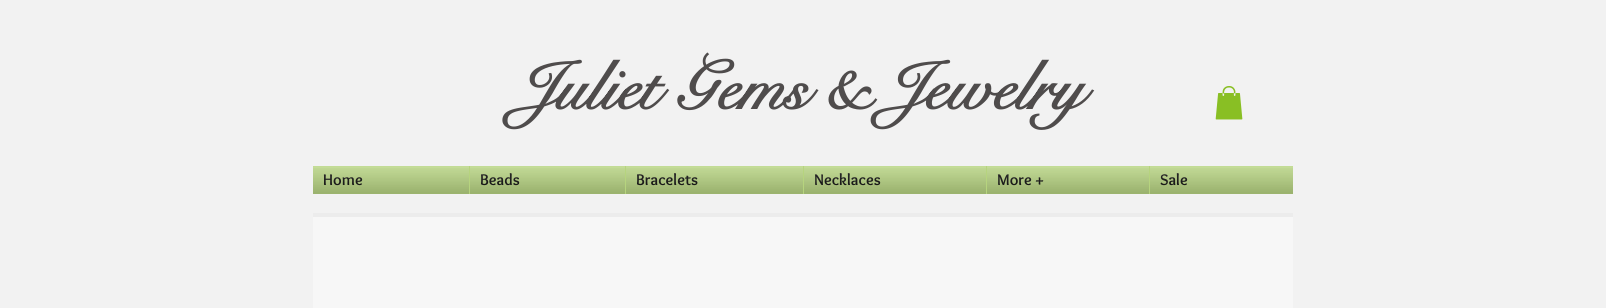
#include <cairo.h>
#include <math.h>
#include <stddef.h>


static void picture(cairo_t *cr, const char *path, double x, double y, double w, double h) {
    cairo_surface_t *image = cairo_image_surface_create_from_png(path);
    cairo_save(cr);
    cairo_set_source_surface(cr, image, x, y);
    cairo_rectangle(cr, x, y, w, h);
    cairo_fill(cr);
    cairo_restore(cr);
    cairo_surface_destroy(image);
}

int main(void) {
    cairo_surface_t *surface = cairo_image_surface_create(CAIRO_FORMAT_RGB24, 1606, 308);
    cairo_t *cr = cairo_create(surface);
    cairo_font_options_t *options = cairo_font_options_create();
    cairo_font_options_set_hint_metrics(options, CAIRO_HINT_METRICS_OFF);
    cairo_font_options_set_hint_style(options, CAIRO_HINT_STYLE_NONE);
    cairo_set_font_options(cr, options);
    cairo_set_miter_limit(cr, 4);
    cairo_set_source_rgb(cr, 0.949, 0.949, 0.949);
    cairo_paint(cr);
    cairo_select_font_face(cr, "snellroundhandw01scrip", CAIRO_FONT_SLANT_NORMAL, CAIRO_FONT_WEIGHT_BOLD);
    cairo_set_font_size(cr, 68);
    cairo_set_source_rgb(cr, 0.31, 0.298, 0.298);
    cairo_move_to(cr, 515, 109);
    cairo_show_text(cr, "Juliet Gems & Jewelry");
    picture(cr, "img1.png", 1215, 86, 28, 34);
    cairo_set_source_rgb(cr, 0.714, 0.831, 0.494);
    cairo_rectangle(cr, 313, 166, 980, 28);
    cairo_fill(cr);
    cairo_select_font_face(cr, "Overlock", CAIRO_FONT_SLANT_NORMAL, CAIRO_FONT_WEIGHT_BOLD);
    cairo_set_font_size(cr, 16);
    cairo_set_source_rgb(cr, 0, 0, 0);
    cairo_move_to(cr, 323, 185);
    cairo_show_text(cr, "Home");
    picture(cr, "img2.png", 313, 166, 156, 28);
    picture(cr, "img3.png", 313, 168, 156, 26);
    cairo_move_to(cr, 480, 185);
    cairo_show_text(cr, "Beads");
    picture(cr, "img4.png", 470, 166, 155, 28);
    picture(cr, "img5.png", 470, 168, 155, 26);
    cairo_move_to(cr, 636, 185);
    cairo_show_text(cr, "Bracelets");
    picture(cr, "img6.png", 626, 166, 177, 28);
    picture(cr, "img7.png", 626, 168, 177, 26);
    cairo_move_to(cr, 814, 185);
    cairo_show_text(cr, "Necklaces");
    picture(cr, "img8.png", 804, 166, 182, 28);
    picture(cr, "img9.png", 804, 168, 182, 26);
    cairo_move_to(cr, 997, 185);
    cairo_show_text(cr, "More +");
    picture(cr, "img10.png", 987, 166, 162, 28);
    picture(cr, "img11.png", 987, 168, 162, 26);
    cairo_move_to(cr, 1160, 185);
    cairo_show_text(cr, "Sale");
    picture(cr, "img12.png", 1150, 166, 143, 28);
    picture(cr, "img13.png", 1150, 168, 143, 26);
    cairo_set_source_rgb(cr, 0.965, 0.965, 0.965);
    cairo_rectangle(cr, 313, 217, 980, 91);
    cairo_fill(cr);
    cairo_set_source_rgb(cr, 0.925, 0.925, 0.925);
    cairo_rectangle(cr, 313, 213, 980, 4);
    cairo_fill(cr);
    cairo_surface_write_to_png(surface, "page.png");
    cairo_font_options_destroy(options);
    cairo_destroy(cr);
    cairo_surface_destroy(surface);
    return 0;
}
